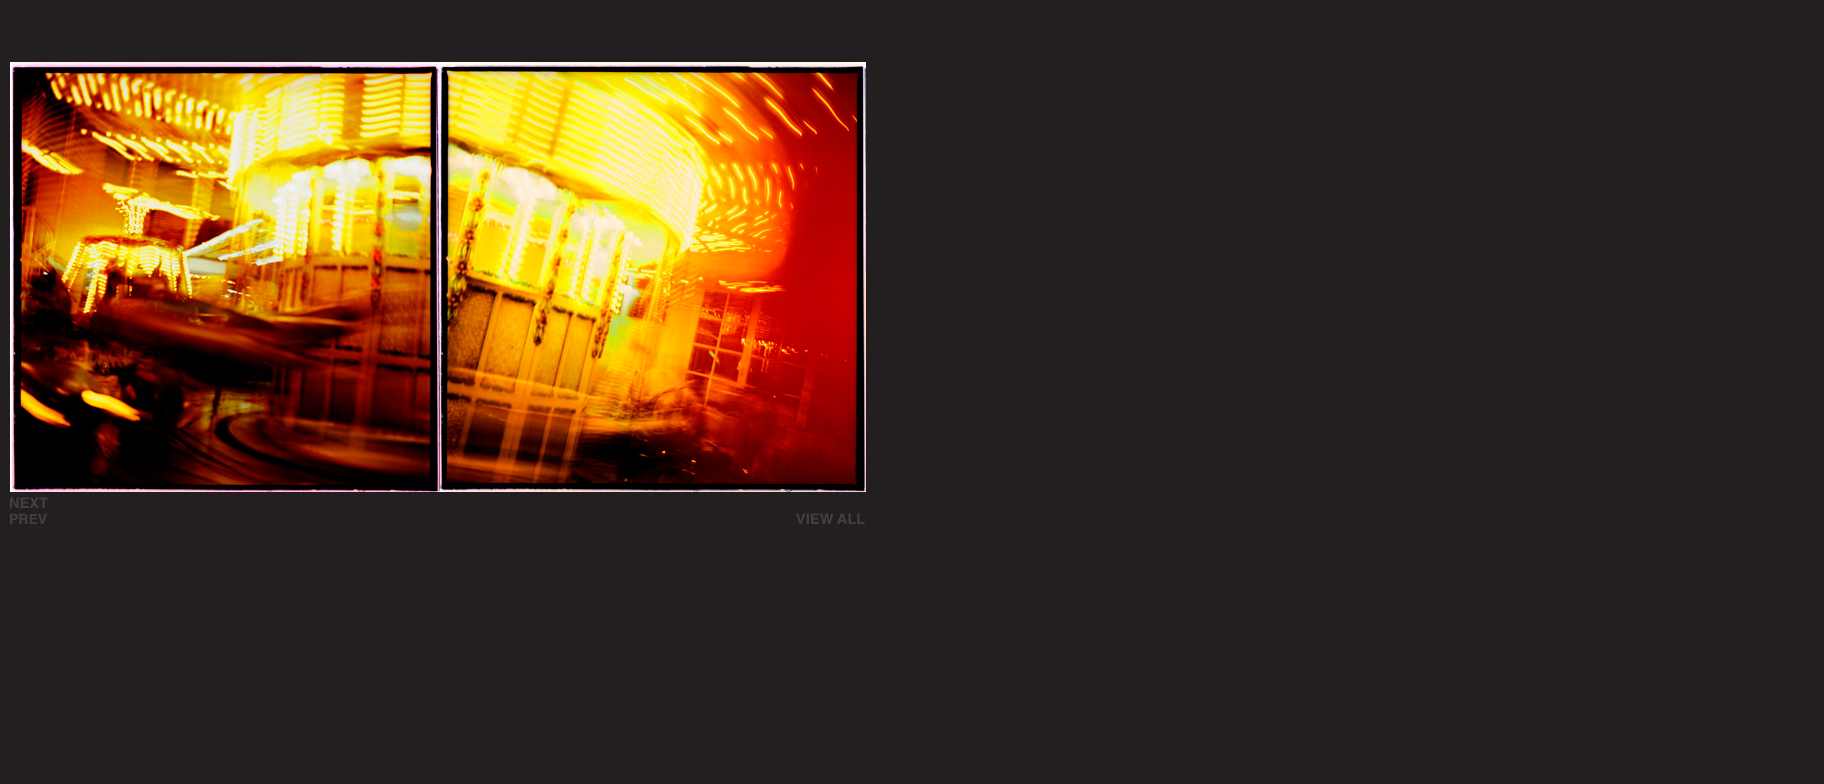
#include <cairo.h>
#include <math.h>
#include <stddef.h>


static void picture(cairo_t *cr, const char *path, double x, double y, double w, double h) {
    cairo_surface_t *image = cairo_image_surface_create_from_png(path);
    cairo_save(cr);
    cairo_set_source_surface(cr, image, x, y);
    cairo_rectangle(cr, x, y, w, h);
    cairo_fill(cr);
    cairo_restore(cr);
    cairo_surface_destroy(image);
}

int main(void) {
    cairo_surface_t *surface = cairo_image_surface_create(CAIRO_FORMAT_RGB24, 1824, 784);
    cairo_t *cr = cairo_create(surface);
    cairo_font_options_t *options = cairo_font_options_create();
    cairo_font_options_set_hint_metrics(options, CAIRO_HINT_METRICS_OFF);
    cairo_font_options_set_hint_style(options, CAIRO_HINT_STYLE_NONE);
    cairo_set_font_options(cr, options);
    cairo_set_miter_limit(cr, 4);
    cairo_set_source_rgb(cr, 0.137, 0.122, 0.125);
    cairo_paint(cr);
    picture(cr, "img1.png", 10, 62, 856, 430);
    picture(cr, "img2.png", 10, 494, 38, 16);
    picture(cr, "img3.png", 10, 513, 37, 11);
    picture(cr, "img4.png", 796, 513, 69, 11);
    cairo_surface_write_to_png(surface, "page.png");
    cairo_font_options_destroy(options);
    cairo_destroy(cr);
    cairo_surface_destroy(surface);
    return 0;
}
